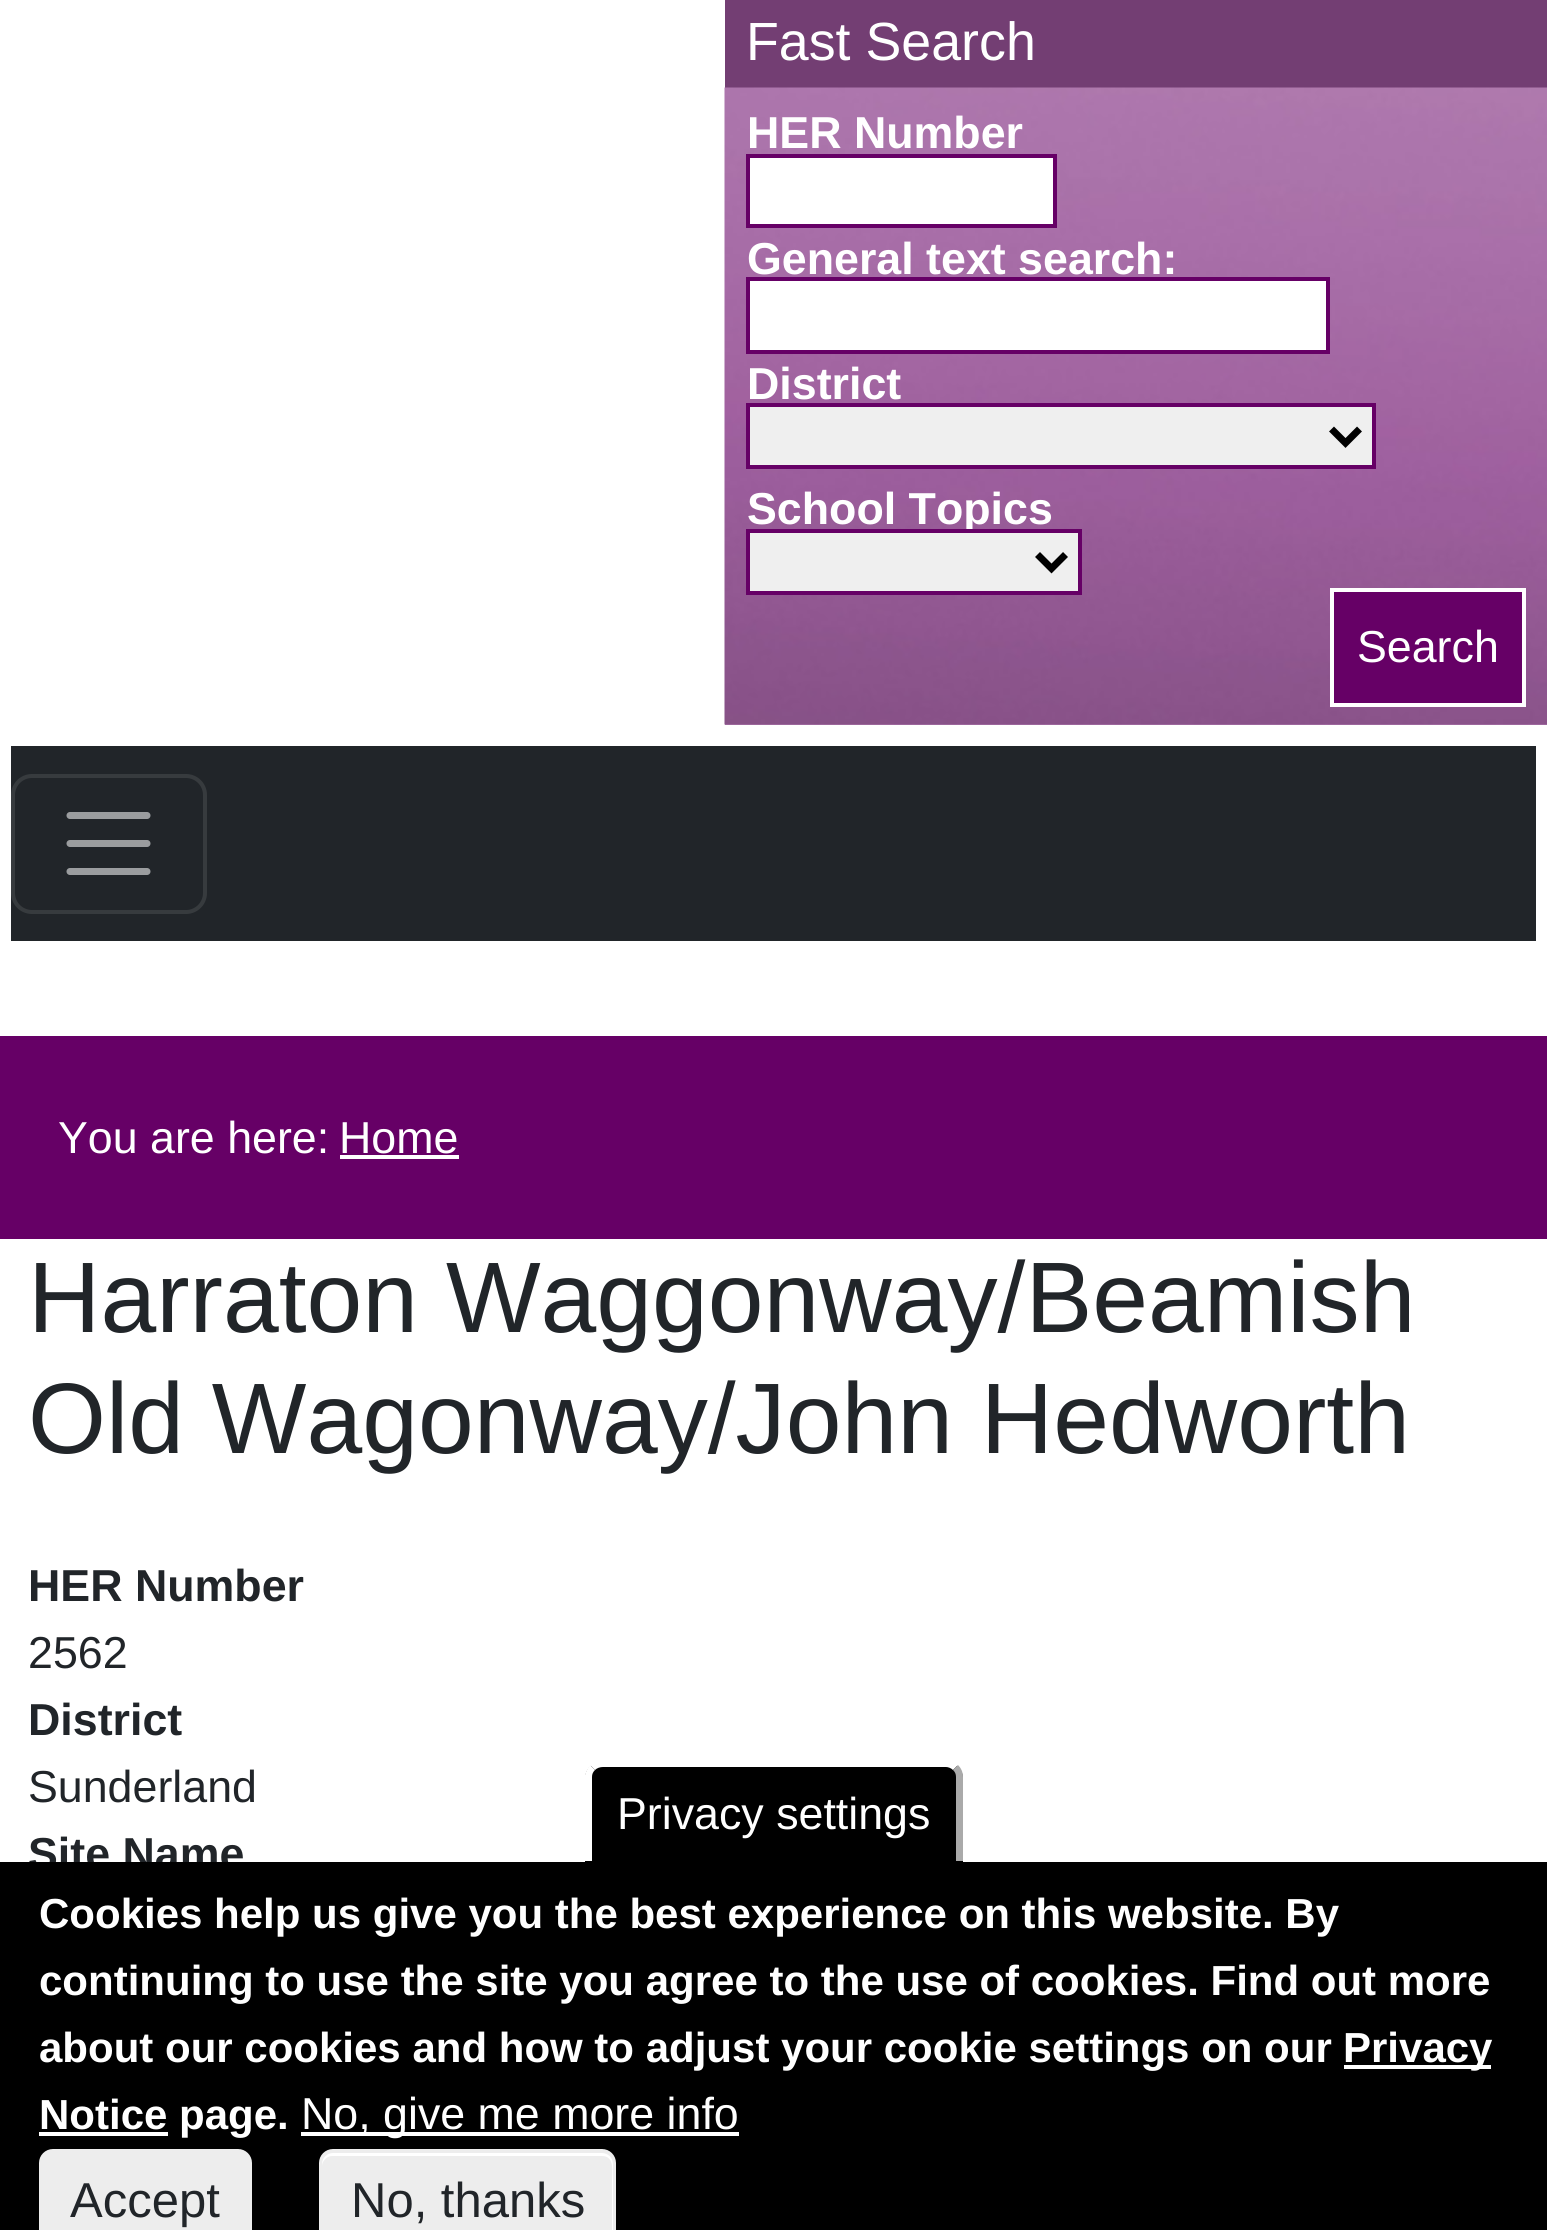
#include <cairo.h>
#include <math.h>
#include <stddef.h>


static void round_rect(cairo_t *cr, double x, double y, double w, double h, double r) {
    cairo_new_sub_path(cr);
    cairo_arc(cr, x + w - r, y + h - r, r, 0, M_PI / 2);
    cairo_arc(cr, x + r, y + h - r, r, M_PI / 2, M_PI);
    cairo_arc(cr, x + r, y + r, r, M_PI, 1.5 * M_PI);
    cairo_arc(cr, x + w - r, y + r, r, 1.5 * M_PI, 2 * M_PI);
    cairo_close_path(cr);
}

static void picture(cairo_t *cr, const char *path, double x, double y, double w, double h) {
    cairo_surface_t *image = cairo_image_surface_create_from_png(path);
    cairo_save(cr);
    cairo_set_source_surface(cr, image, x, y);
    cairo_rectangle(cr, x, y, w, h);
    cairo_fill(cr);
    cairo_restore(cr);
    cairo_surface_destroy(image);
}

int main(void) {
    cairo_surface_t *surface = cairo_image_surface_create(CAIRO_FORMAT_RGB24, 1547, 2230);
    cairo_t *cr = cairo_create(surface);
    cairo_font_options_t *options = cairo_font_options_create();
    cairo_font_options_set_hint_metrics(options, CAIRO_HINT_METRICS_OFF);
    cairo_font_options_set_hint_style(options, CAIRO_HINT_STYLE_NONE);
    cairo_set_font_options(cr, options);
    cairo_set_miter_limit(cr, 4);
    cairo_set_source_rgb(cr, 1, 1, 1);
    cairo_paint(cr);
    cairo_set_source_rgb(cr, 0.451, 0.243, 0.451);
    cairo_rectangle(cr, 725, 0, 822, 88);
    cairo_fill(cr);
    cairo_select_font_face(cr, "Liberation Sans", CAIRO_FONT_SLANT_NORMAL, CAIRO_FONT_WEIGHT_NORMAL);
    cairo_set_font_size(cr, 53.75);
    cairo_set_source_rgb(cr, 1, 1, 1);
    cairo_move_to(cr, 746, 60);
    cairo_show_text(cr, "Fast Search");
    cairo_set_source_rgb(cr, 0.686, 0.482, 0.686);
    cairo_rectangle(cr, 725, 724, 822, 1);
    cairo_fill(cr);
    picture(cr, "img1.png", 724, 87, 823, 638);
    cairo_select_font_face(cr, "Liberation Sans", CAIRO_FONT_SLANT_NORMAL, CAIRO_FONT_WEIGHT_BOLD);
    cairo_set_font_size(cr, 44.75);
    cairo_set_source_rgb(cr, 1, 1, 1);
    cairo_move_to(cr, 747, 148);
    cairo_show_text(cr, "HER Number");
    cairo_rectangle(cr, 748, 156, 307, 70);
    cairo_fill_preserve(cr);
    cairo_set_source_rgb(cr, 0.4, 0, 0.4);
    cairo_set_line_width(cr, 4);
    cairo_stroke(cr);
    cairo_set_source_rgb(cr, 1, 1, 1);
    cairo_move_to(cr, 747, 274);
    cairo_show_text(cr, "General text search:");
    cairo_rectangle(cr, 748, 279, 580, 73);
    cairo_fill_preserve(cr);
    cairo_set_source_rgb(cr, 0.4, 0, 0.4);
    cairo_stroke(cr);
    cairo_set_source_rgb(cr, 1, 1, 1);
    cairo_move_to(cr, 747, 399);
    cairo_show_text(cr, "District");
    cairo_set_source_rgb(cr, 0.937, 0.937, 0.937);
    cairo_rectangle(cr, 748, 405, 626, 62);
    cairo_fill_preserve(cr);
    cairo_set_source_rgb(cr, 0.4, 0, 0.4);
    cairo_stroke(cr);
    cairo_new_path(cr);
    cairo_move_to(cr, 1331.5, 429);
    cairo_line_to(cr, 1345.5, 443);
    cairo_line_to(cr, 1359.5, 429);
    cairo_set_source_rgb(cr, 0, 0, 0);
    cairo_set_line_width(cr, 7);
    cairo_stroke(cr);
    cairo_set_source_rgb(cr, 1, 1, 1);
    cairo_move_to(cr, 747, 524);
    cairo_show_text(cr, "School Topics");
    cairo_set_source_rgb(cr, 0.937, 0.937, 0.937);
    cairo_rectangle(cr, 748, 531, 332, 62);
    cairo_fill_preserve(cr);
    cairo_set_source_rgb(cr, 0.4, 0, 0.4);
    cairo_set_line_width(cr, 4);
    cairo_stroke(cr);
    cairo_new_path(cr);
    cairo_move_to(cr, 1037.5, 554.5);
    cairo_line_to(cr, 1051.5, 568.5);
    cairo_line_to(cr, 1065.5, 554.5);
    cairo_set_source_rgb(cr, 0, 0, 0);
    cairo_set_line_width(cr, 7);
    cairo_stroke(cr);
    cairo_set_source_rgb(cr, 0.4, 0, 0.4);
    cairo_rectangle(cr, 1332, 590, 192, 115);
    cairo_fill_preserve(cr);
    cairo_set_source_rgb(cr, 1, 1, 1);
    cairo_set_line_width(cr, 4);
    cairo_stroke(cr);
    cairo_select_font_face(cr, "Liberation Sans", CAIRO_FONT_SLANT_NORMAL, CAIRO_FONT_WEIGHT_NORMAL);
    cairo_move_to(cr, 1357, 662);
    cairo_show_text(cr, "Search");
    cairo_set_source_rgb(cr, 0.129, 0.145, 0.161);
    cairo_rectangle(cr, 11, 746, 1525, 195);
    cairo_fill(cr);
    round_rect(cr, 13, 776, 192, 136, 19);
    cairo_set_source_rgb(cr, 0.216, 0.231, 0.243);
    cairo_stroke(cr);
    cairo_new_path(cr);
    cairo_move_to(cr, 70, 815.5);
    cairo_line_to(cr, 147, 815.5);
    cairo_move_to(cr, 70, 843.5);
    cairo_line_to(cr, 147, 843.5);
    cairo_move_to(cr, 70, 871.5);
    cairo_line_to(cr, 147, 871.5);
    cairo_set_source_rgb(cr, 0.608, 0.616, 0.624);
    cairo_set_line_width(cr, 7);
    cairo_set_line_cap(cr, CAIRO_LINE_CAP_ROUND);
    cairo_stroke(cr);
    cairo_set_source_rgb(cr, 0.4, 0, 0.4);
    cairo_rectangle(cr, 0, 1036, 1547, 203);
    cairo_fill(cr);
    cairo_set_source_rgb(cr, 1, 1, 1);
    cairo_move_to(cr, 58, 1153);
    cairo_show_text(cr, "You are here:");
    cairo_move_to(cr, 339, 1153);
    cairo_show_text(cr, "Home");
    cairo_rectangle(cr, 340, 1155, 119, 4);
    cairo_fill(cr);
    cairo_set_font_size(cr, 100.25);
    cairo_set_source_rgb(cr, 0.129, 0.145, 0.161);
    cairo_move_to(cr, 28, 1332);
    cairo_show_text(cr, "Harraton Waggonway/Beamish");
    cairo_move_to(cr, 28, 1453);
    cairo_show_text(cr, "Old Wagonway/John Hedworth");
    cairo_select_font_face(cr, "Liberation Sans", CAIRO_FONT_SLANT_NORMAL, CAIRO_FONT_WEIGHT_BOLD);
    cairo_set_font_size(cr, 44.75);
    cairo_move_to(cr, 28, 1601);
    cairo_show_text(cr, "HER Number");
    cairo_select_font_face(cr, "Liberation Sans", CAIRO_FONT_SLANT_NORMAL, CAIRO_FONT_WEIGHT_NORMAL);
    cairo_move_to(cr, 28, 1668);
    cairo_show_text(cr, "2562");
    cairo_select_font_face(cr, "Liberation Sans", CAIRO_FONT_SLANT_NORMAL, CAIRO_FONT_WEIGHT_BOLD);
    cairo_move_to(cr, 28, 1735);
    cairo_show_text(cr, "District");
    cairo_select_font_face(cr, "Liberation Sans", CAIRO_FONT_SLANT_NORMAL, CAIRO_FONT_WEIGHT_NORMAL);
    cairo_move_to(cr, 28, 1802);
    cairo_show_text(cr, "Sunderland");
    cairo_select_font_face(cr, "Liberation Sans", CAIRO_FONT_SLANT_NORMAL, CAIRO_FONT_WEIGHT_BOLD);
    cairo_move_to(cr, 28, 1869);
    cairo_show_text(cr, "Site Name");
    cairo_set_source_rgb(cr, 0, 0, 0);
    cairo_rectangle(cr, 0, 1862, 1547, 368);
    cairo_fill(cr);
    cairo_new_path(cr);
    cairo_move_to(cr, 603, 1761);
    cairo_line_to(cr, 945, 1761);
    cairo_curve_to(cr, 955, 1761, 963, 1769, 963, 1779);
    cairo_line_to(cr, 963, 1862);
    cairo_line_to(cr, 585, 1862);
    cairo_line_to(cr, 585, 1779);
    cairo_curve_to(cr, 585, 1769, 593, 1761, 603, 1761);
    cairo_close_path(cr);
    cairo_fill(cr);
    cairo_set_source_rgb(cr, 1, 1, 1);
    cairo_new_path(cr);
    cairo_move_to(cr, 603, 1760);
    cairo_line_to(cr, 946, 1760);
    cairo_curve_to(cr, 950, 1760, 955, 1762, 958, 1765);
    cairo_line_to(cr, 953, 1770);
    cairo_curve_to(cr, 951, 1768, 948, 1767, 946, 1767);
    cairo_line_to(cr, 603, 1767);
    cairo_curve_to(cr, 600, 1767, 597, 1768, 595, 1770);
    cairo_line_to(cr, 590, 1765);
    cairo_curve_to(cr, 594, 1762, 598, 1760, 603, 1760);
    cairo_close_path(cr);
    cairo_fill(cr);
    cairo_set_source_rgb(cr, 0.667, 0.667, 0.667);
    cairo_new_path(cr);
    cairo_move_to(cr, 953, 1770);
    cairo_curve_to(cr, 955, 1772, 956, 1774, 956, 1777);
    cairo_line_to(cr, 956, 1861);
    cairo_line_to(cr, 963, 1861);
    cairo_line_to(cr, 963, 1777);
    cairo_curve_to(cr, 963, 1772, 961, 1768, 958, 1765);
    cairo_close_path(cr);
    cairo_fill(cr);
    cairo_set_source_rgb(cr, 1, 1, 1);
    cairo_new_path(cr);
    cairo_move_to(cr, 590, 1765);
    cairo_line_to(cr, 595, 1770);
    cairo_curve_to(cr, 593, 1772, 592, 1774, 592, 1777);
    cairo_line_to(cr, 592, 1861);
    cairo_line_to(cr, 585, 1861);
    cairo_line_to(cr, 585, 1775);
    cairo_curve_to(cr, 586, 1771, 588, 1768, 590, 1765);
    cairo_close_path(cr);
    cairo_fill(cr);
    cairo_select_font_face(cr, "Liberation Sans", CAIRO_FONT_SLANT_NORMAL, CAIRO_FONT_WEIGHT_NORMAL);
    cairo_move_to(cr, 617, 1829);
    cairo_show_text(cr, "Privacy settings");
    cairo_select_font_face(cr, "Liberation Sans", CAIRO_FONT_SLANT_NORMAL, CAIRO_FONT_WEIGHT_BOLD);
    cairo_set_font_size(cr, 42);
    cairo_move_to(cr, 39, 1928);
    cairo_show_text(cr, "Cookies help us give you the best experience on this website. By");
    cairo_move_to(cr, 39, 1995);
    cairo_show_text(cr, "continuing to use the site you agree to the use of cookies. Find out more");
    cairo_move_to(cr, 39, 2062);
    cairo_show_text(cr, "about our cookies and how to adjust your cookie settings on our");
    cairo_rectangle(cr, 1344, 2065, 147, 4);
    cairo_fill(cr);
    cairo_move_to(cr, 1343, 2062);
    cairo_show_text(cr, "Privacy");
    cairo_rectangle(cr, 39, 2132, 129, 4);
    cairo_fill(cr);
    cairo_move_to(cr, 39, 2129);
    cairo_show_text(cr, "Notice page.");
    cairo_rectangle(cr, 301, 2132, 438, 4);
    cairo_fill(cr);
    cairo_select_font_face(cr, "Liberation Sans", CAIRO_FONT_SLANT_NORMAL, CAIRO_FONT_WEIGHT_NORMAL);
    cairo_set_font_size(cr, 44.75);
    cairo_move_to(cr, 301, 2129);
    cairo_show_text(cr, "No, give me more info");
    cairo_set_source_rgb(cr, 0.929, 0.929, 0.929);
    round_rect(cr, 39, 2149, 213, 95, 14);
    cairo_fill(cr);
    cairo_set_font_size(cr, 49);
    cairo_set_source_rgb(cr, 0.129, 0.145, 0.161);
    cairo_move_to(cr, 70, 2217);
    cairo_show_text(cr, "Accept");
    cairo_set_source_rgb(cr, 0.929, 0.929, 0.929);
    round_rect(cr, 319, 2149, 297, 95, 14);
    cairo_fill(cr);
    cairo_set_source_rgb(cr, 1, 1, 1);
    cairo_new_path(cr);
    cairo_move_to(cr, 332, 2156);
    cairo_line_to(cr, 602, 2156);
    cairo_curve_to(cr, 615, 2156, 612, 2172, 612, 2180);
    cairo_line_to(cr, 612, 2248);
    cairo_curve_to(cr, 613, 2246, 613, 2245, 613, 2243);
    cairo_line_to(cr, 613, 2164);
    cairo_curve_to(cr, 613, 2158, 608, 2153, 602, 2153);
    cairo_line_to(cr, 333, 2153);
    cairo_curve_to(cr, 327, 2153, 322, 2158, 322, 2164);
    cairo_line_to(cr, 322, 2166);
    cairo_curve_to(cr, 322, 2161, 327, 2156, 332, 2156);
    cairo_close_path(cr);
    cairo_fill(cr);
    cairo_set_source_rgb(cr, 0.129, 0.145, 0.161);
    cairo_move_to(cr, 351, 2217);
    cairo_show_text(cr, "No, thanks");
    cairo_surface_write_to_png(surface, "page.png");
    cairo_font_options_destroy(options);
    cairo_destroy(cr);
    cairo_surface_destroy(surface);
    return 0;
}
